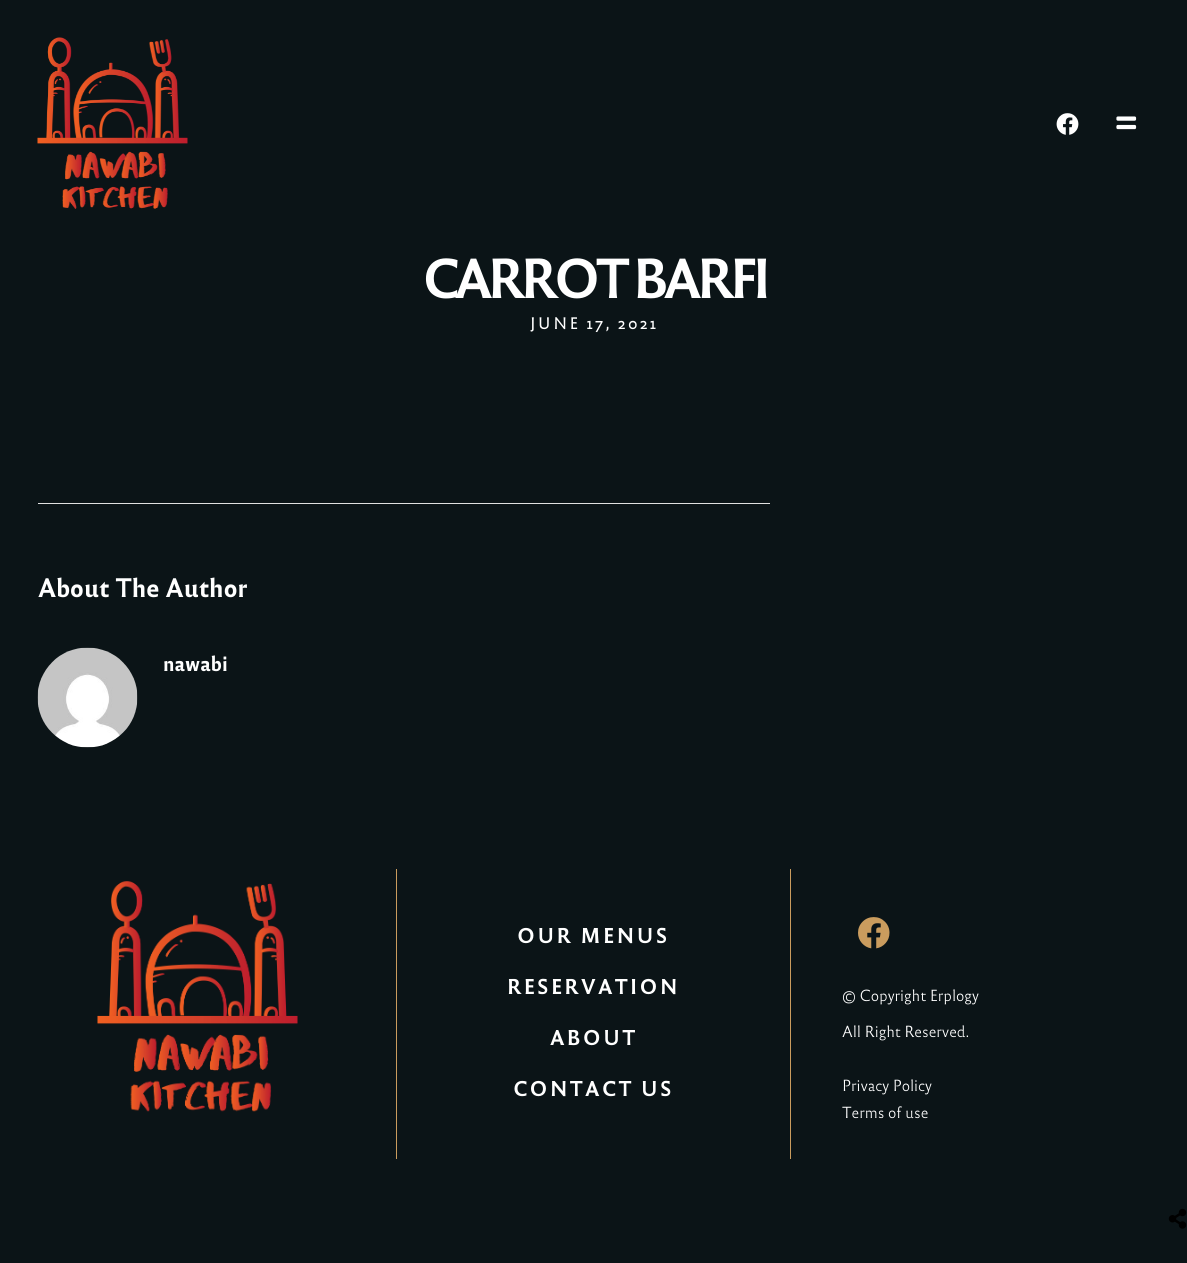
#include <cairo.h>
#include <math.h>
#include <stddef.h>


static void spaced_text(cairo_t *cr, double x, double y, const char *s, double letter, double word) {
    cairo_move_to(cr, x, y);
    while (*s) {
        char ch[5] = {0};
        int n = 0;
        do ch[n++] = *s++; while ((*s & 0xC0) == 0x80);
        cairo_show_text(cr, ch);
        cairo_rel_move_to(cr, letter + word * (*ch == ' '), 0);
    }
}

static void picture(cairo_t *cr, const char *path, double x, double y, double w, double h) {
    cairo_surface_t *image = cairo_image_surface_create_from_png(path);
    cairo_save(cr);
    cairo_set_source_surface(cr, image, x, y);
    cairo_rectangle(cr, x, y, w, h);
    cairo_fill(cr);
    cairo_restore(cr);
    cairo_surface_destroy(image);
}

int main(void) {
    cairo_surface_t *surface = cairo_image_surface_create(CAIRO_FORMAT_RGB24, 1187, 1263);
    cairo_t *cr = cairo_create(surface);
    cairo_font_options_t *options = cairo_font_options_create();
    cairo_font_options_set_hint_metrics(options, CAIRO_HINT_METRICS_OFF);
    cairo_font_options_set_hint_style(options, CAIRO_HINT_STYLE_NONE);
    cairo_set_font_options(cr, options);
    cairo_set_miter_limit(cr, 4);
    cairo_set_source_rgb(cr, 0.043, 0.082, 0.09);
    cairo_paint(cr);
    picture(cr, "img1.png", 37, 37, 151, 172);
    picture(cr, "img2.png", 1056, 113, 23, 22);
    picture(cr, "img3.png", 1116, 116, 21, 14);
    cairo_select_font_face(cr, "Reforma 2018", CAIRO_FONT_SLANT_NORMAL, CAIRO_FONT_WEIGHT_BOLD);
    cairo_set_font_size(cr, 52.5);
    cairo_set_source_rgb(cr, 1, 1, 1);
    spaced_text(cr, 422, 298, "CARROT BARFI", -5, 0);
    cairo_select_font_face(cr, "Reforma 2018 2", CAIRO_FONT_SLANT_NORMAL, CAIRO_FONT_WEIGHT_BOLD);
    cairo_set_font_size(cr, 15);
    spaced_text(cr, 530, 329, "JUNE 17, 2021", 2.5, 0);
    cairo_set_source_rgb(cr, 0.882, 0.882, 0.882);
    cairo_rectangle(cr, 38, 503, 732, 1);
    cairo_fill(cr);
    cairo_select_font_face(cr, "Reforma 2018", CAIRO_FONT_SLANT_NORMAL, CAIRO_FONT_WEIGHT_BOLD);
    cairo_set_font_size(cr, 25);
    cairo_set_source_rgb(cr, 1, 1, 1);
    cairo_move_to(cr, 38, 597);
    cairo_show_text(cr, "About The Author");
    picture(cr, "img4.png", 37, 647, 101, 101);
    cairo_set_font_size(cr, 20);
    cairo_move_to(cr, 163, 671);
    cairo_show_text(cr, "nawabi");
    picture(cr, "img5.png", 1168, 1208, 19, 21);
    picture(cr, "img6.png", 97, 881, 201, 231);
    cairo_set_source_rgb(cr, 0.792, 0.612, 0.369);
    cairo_rectangle(cr, 790, 869, 1, 290);
    cairo_fill(cr);
    cairo_rectangle(cr, 396, 869, 1, 290);
    cairo_fill(cr);
    cairo_set_source_rgb(cr, 1, 1, 1);
    spaced_text(cr, 517, 943, "OUR MENUS", 2.25, 0);
    spaced_text(cr, 507, 994, "RESERVATION", 2.25, 0);
    spaced_text(cr, 550, 1045, "ABOUT", 2.25, 0);
    spaced_text(cr, 513, 1096, "CONTACT US", 2.25, 0);
    picture(cr, "img7.png", 858, 917, 32, 32);
    cairo_select_font_face(cr, "Reforma 2018 Light", CAIRO_FONT_SLANT_NORMAL, CAIRO_FONT_WEIGHT_NORMAL);
    cairo_set_font_size(cr, 15);
    cairo_move_to(cr, 842, 1001);
    cairo_show_text(cr, "© Copyright Erplogy");
    cairo_move_to(cr, 842, 1037);
    cairo_show_text(cr, "All Right Reserved.");
    cairo_move_to(cr, 842, 1091);
    cairo_show_text(cr, "Privacy Policy");
    cairo_move_to(cr, 842, 1118);
    cairo_show_text(cr, "Terms of use");
    cairo_surface_write_to_png(surface, "page.png");
    cairo_font_options_destroy(options);
    cairo_destroy(cr);
    cairo_surface_destroy(surface);
    return 0;
}
